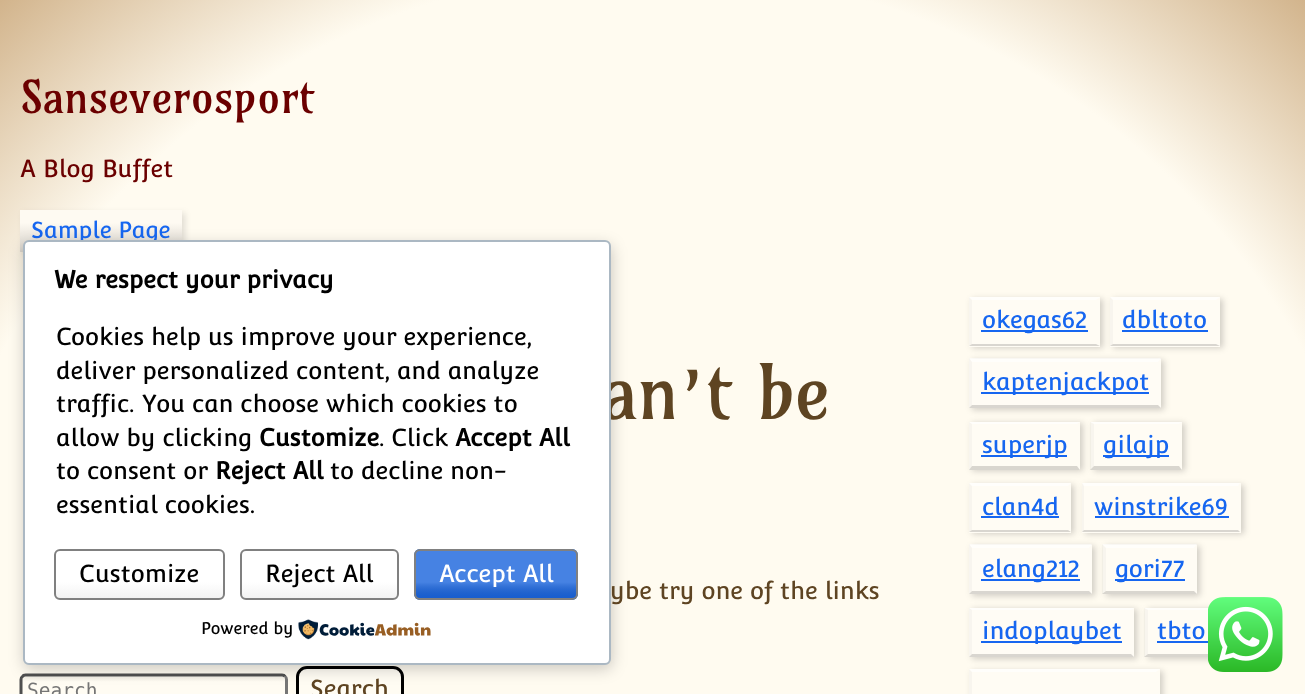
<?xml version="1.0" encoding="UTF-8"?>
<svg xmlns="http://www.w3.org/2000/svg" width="1305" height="694">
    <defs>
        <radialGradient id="g1" gradientUnits="userSpaceOnUse" cx="653" cy="714" r="967"><stop offset="0.77" stop-color="#FFFBF0"/><stop offset="1" stop-color="#D2B48C"/></radialGradient>
        <filter id="blur1" x="-50%" y="-200%" width="200%" height="500%"><feGaussianBlur stdDeviation="3"/></filter>
        <linearGradient id="g2" gradientUnits="userSpaceOnUse" x1="101" y1="210" x2="101" y2="252"><stop offset="0.3" stop-color="#FEFAF2"/><stop offset="1" stop-color="#D5D0C8"/></linearGradient>
        <clipPath id="clip1"><rect x="20" y="674" width="268" height="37" rx="6"/></clipPath>
        <linearGradient id="g3" gradientUnits="userSpaceOnUse" x1="154" y1="677" x2="154" y2="645"><stop offset="0.85" stop-color="#FFFCF3"/><stop offset="1" stop-color="#F2EEE4"/></linearGradient>
        <linearGradient id="g4" gradientUnits="userSpaceOnUse" x1="154" y1="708" x2="154" y2="677"><stop offset="0.85" stop-color="#FFFCF3"/><stop offset="1" stop-color="#F2EEE4"/></linearGradient>
        <clipPath id="clip2"><rect x="296" y="666" width="108" height="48" rx="11"/></clipPath>
        <linearGradient id="g5" gradientUnits="userSpaceOnUse" x1="350" y1="669" x2="350" y2="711"><stop offset="0.65" stop-color="#FFFCF3"/><stop offset="1" stop-color="#F2EEE4"/></linearGradient>
        <filter id="blur2" x="-50%" y="-200%" width="200%" height="500%"><feGaussianBlur stdDeviation="7.5"/></filter>
        <clipPath id="clip3"><rect x="54" y="549" width="171" height="51" rx="6"/></clipPath>
        <linearGradient id="g6" gradientUnits="userSpaceOnUse" x1="140" y1="551" x2="140" y2="599"><stop offset="0.65" stop-color="#FFFFFF"/><stop offset="1" stop-color="#F2F2F2"/></linearGradient>
        <clipPath id="clip4"><rect x="240" y="549" width="159" height="51" rx="6"/></clipPath>
        <linearGradient id="g7" gradientUnits="userSpaceOnUse" x1="320" y1="551" x2="320" y2="599"><stop offset="0.65" stop-color="#FFFFFF"/><stop offset="1" stop-color="#F2F2F2"/></linearGradient>
        <clipPath id="clip5"><rect x="414" y="549" width="164" height="51" rx="6"/></clipPath>
        <linearGradient id="g8" gradientUnits="userSpaceOnUse" x1="496" y1="551" x2="496" y2="599"><stop offset="0.65" stop-color="#FFFFFF" stop-opacity="0.2"/><stop offset="1" stop-color="#000000" stop-opacity="0.05"/></linearGradient>
        <clipPath id="clip6"><path d="M 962 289 H 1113 V 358 H 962 Z M 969 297 H 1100 V 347 H 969 Z" clip-rule="evenodd"/></clipPath>
        <clipPath id="clip7"><path d="M 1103 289 H 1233 V 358 H 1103 Z M 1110 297 H 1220 V 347 H 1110 Z" clip-rule="evenodd"/></clipPath>
        <clipPath id="clip8"><path d="M 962 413 H 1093 V 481 H 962 Z M 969 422 H 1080 V 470 H 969 Z" clip-rule="evenodd"/></clipPath>
        <clipPath id="clip9"><path d="M 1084 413 H 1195 V 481 H 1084 Z M 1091 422 H 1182 V 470 H 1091 Z" clip-rule="evenodd"/></clipPath>
        <clipPath id="clip10"><path d="M 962 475 H 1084 V 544 H 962 Z M 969 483 H 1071 V 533 H 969 Z" clip-rule="evenodd"/></clipPath>
        <clipPath id="clip11"><path d="M 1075 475 H 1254 V 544 H 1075 Z M 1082 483 H 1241 V 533 H 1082 Z" clip-rule="evenodd"/></clipPath>
        <clipPath id="clip12"><path d="M 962 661 H 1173 V 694 H 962 Z M 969 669 H 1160 V 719 H 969 Z" clip-rule="evenodd"/></clipPath>
    </defs>
    <rect width="100%" height="100%" fill="#FFFFFF"/>
    <rect x="0" y="0" width="1305" height="694" fill="url(#g1)"/>
    <text x="20" y="113" font-family="Amarante" font-size="44.5" fill="#6B0000">Sanseverosport</text>
    <text x="20" y="177" font-family="Convergence" font-size="24" fill="#6B0000">A Blog Buffet</text>
    <rect x="23" y="213" width="162" height="42" fill="#000000" fill-opacity="0.12" filter="url(#blur1)"/>
    <rect x="20" y="210" width="162" height="42" fill="url(#g2)"/>
    <text x="31" y="238" font-family="Convergence" font-size="22.75" fill="#1666F0">Sample Page</text>
    <g clip-path="url(#clip1)">
        <rect x="20" y="674" width="268" height="3" fill="url(#g3)"/>
        <rect x="20" y="677" width="268" height="17" fill="url(#g4)"/>
    </g>
    <path d="M 285 676.5 C 286 677 286.5 678.5 286.5 679.5 V 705 C 286.5 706 286 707.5 285 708 C 284.5 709 283 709.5 282 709.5 H 25.5 C 24.5 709.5 23 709 22.5 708" fill="none" stroke="#767676" stroke-width="3"/>
    <path d="M 22.5 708 C 21.5 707.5 21 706 21 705 V 679.5 C 21 678.5 21.5 677 22.5 676.5 C 23 675.5 24.5 675 25.5 675 H 282 C 283 675 284.5 675.5 285 676.5" fill="none" stroke="#4F4F4F" stroke-width="3"/>
    <g clip-path="url(#clip2)">
        <rect x="296" y="669" width="108" height="25" fill="url(#g5)"/>
    </g>
    <rect x="297.5" y="667.5" width="105" height="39" rx="9.5" fill="none" stroke="#000000" stroke-width="3"/>
    <rect x="24" y="245" width="588" height="424" rx="6" fill="#000000" fill-opacity="0.2" filter="url(#blur2)"/>
    <text x="601" y="419" font-family="Amarante" font-size="75" fill="#5E4422">an’t be</text>
    <rect x="24" y="241" width="586" height="423" rx="5" fill="#FFFFFF" stroke="#ABB8C3" stroke-width="2"/>
    <text x="54" y="288" font-family="Convergence" font-size="24" font-weight="700" fill="#000000">We respect your privacy</text>
    <text font-family="Convergence" font-size="24" fill="#000000">
        <tspan x="56" y="345">Cookies help us improve your experience,</tspan>
        <tspan x="56" y="379">deliver personalized content, and analyze</tspan>
        <tspan x="56" y="412">traffic. You can choose which cookies to</tspan>
        <tspan x="56" y="446">allow by clicking</tspan>
    </text>
    <text x="259" y="446" font-family="Convergence" font-size="24" font-weight="700" fill="#000000">Customize</text>
    <text x="379" y="446" font-family="Convergence" font-size="24" fill="#000000">. Click</text>
    <text x="455" y="446" font-family="Convergence" font-size="24" font-weight="700" fill="#000000">Accept All</text>
    <text x="56" y="479" font-family="Convergence" font-size="24" fill="#000000">to consent or</text>
    <text x="215" y="479" font-family="Convergence" font-size="24" font-weight="700" fill="#000000">Reject All</text>
    <text x="330" y="479" font-family="Convergence" font-size="24" fill="#000000">to decline non-</text>
    <text x="56" y="513" font-family="Convergence" font-size="24" fill="#000000">essential cookies.</text>
    <g clip-path="url(#clip3)">
        <rect x="54" y="551" width="171" height="48" fill="url(#g6)"/>
    </g>
    <rect x="55" y="550" width="169" height="49" rx="5" fill="none" stroke="#808080" stroke-width="2"/>
    <text x="79" y="582" font-family="Convergence" font-size="24" fill="#000000">Customize</text>
    <g clip-path="url(#clip4)">
        <rect x="240" y="551" width="159" height="48" fill="url(#g7)"/>
    </g>
    <rect x="241" y="550" width="157" height="49" rx="5" fill="none" stroke="#808080" stroke-width="2"/>
    <text x="265" y="582" font-family="Convergence" font-size="24" fill="#000000">Reject All</text>
    <rect x="414" y="549" width="164" height="51" rx="6" fill="#1863DC"/>
    <g clip-path="url(#clip5)">
        <rect x="414" y="551" width="164" height="48" fill="url(#g8)"/>
    </g>
    <rect x="415" y="550" width="162" height="49" rx="5" fill="none" stroke="#808080" stroke-width="2"/>
    <text x="439" y="582" font-family="Convergence" font-size="24" fill="#FFFFFF">Accept All</text>
    <text x="201" y="634" font-family="Convergence" font-size="16.5" fill="#000000">Powered by</text>
    <image x="298" y="619" width="133" height="21" href="img_01.png"/>
    <text x="610" y="599" font-family="Convergence" font-size="24" fill="#5E4422">ybe try one of the links</text>
    <text x="27" y="697" font-family="DejaVu Sans Mono" font-size="19.5" fill="#757575">Search</text>
    <text x="310" y="697" font-family="Convergence" font-size="24" fill="#5E4422">Search</text>
    <g clip-path="url(#clip6)">
        <rect x="972" y="299" width="131" height="49" fill="#000000" fill-opacity="0.18" filter="url(#blur1)"/>
    </g>
    <rect x="969" y="297" width="131" height="50" fill="#FFFFFF" fill-opacity="0.3"/>
    <path d="M 969 297 H 1100 L 1096 300 H 972 Z" fill="#FFFEFB"/>
    <path d="M 1100 346 H 969 L 972 344 H 1096 Z" fill="#D9D6D0"/>
    <path d="M 969 346 V 297 L 972 300 V 344 Z" fill="#C8C8C8" fill-opacity="0.13"/>
    <rect x="981" y="330" width="107" height="2" fill="#1666F0"/>
    <text x="982" y="328" font-family="Convergence" font-size="24" fill="#1666F0">okegas62</text>
    <g clip-path="url(#clip7)">
        <rect x="1113" y="299" width="110" height="49" fill="#000000" fill-opacity="0.18" filter="url(#blur1)"/>
    </g>
    <rect x="1110" y="297" width="110" height="50" fill="#FFFFFF" fill-opacity="0.3"/>
    <path d="M 1110 297 H 1220 L 1216 300 H 1113 Z" fill="#FFFEFB"/>
    <path d="M 1220 346 H 1110 L 1113 344 H 1216 Z" fill="#D9D6D0"/>
    <path d="M 1110 346 V 297 L 1113 300 V 344 Z" fill="#C8C8C8" fill-opacity="0.13"/>
    <text x="1122" y="328" font-family="Convergence" font-size="24" fill="#1666F0">dbltoto</text>
    <rect x="1122" y="330" width="86" height="2" fill="#1666F0"/>
    <rect x="972" y="360" width="192" height="50" fill="#000000" fill-opacity="0.18" filter="url(#blur1)"/>
    <rect x="969" y="359" width="192" height="49" fill="#FFFCF5"/>
    <path d="M 969 358 H 1161 L 1158 362 H 972 Z" fill="#FFFFFF" fill-opacity="0.6"/>
    <path d="M 1161 408 H 969 L 972 405 H 1158 Z" fill="#D9D6D0"/>
    <path d="M 969 408 V 358 L 972 362 V 405 Z" fill="#C8C8C8" fill-opacity="0.13"/>
    <rect x="981" y="392" width="168" height="2" fill="#1666F0"/>
    <text x="982" y="390" font-family="Convergence" font-size="24" fill="#1666F0">kaptenjackpot</text>
    <g clip-path="url(#clip8)">
        <rect x="972" y="423" width="111" height="48" fill="#000000" fill-opacity="0.18" filter="url(#blur1)"/>
    </g>
    <rect x="969" y="422" width="111" height="48" fill="#FFFFFF" fill-opacity="0.3"/>
    <path d="M 969 422 H 1080 L 1077 424 H 972 Z" fill="#FFFEFB"/>
    <path d="M 1080 470 H 969 L 972 466 H 1077 Z" fill="#000000" fill-opacity="0.15"/>
    <path d="M 969 470 V 422 L 972 424 V 466 Z" fill="#C8C8C8" fill-opacity="0.13"/>
    <rect x="981" y="455" width="86" height="2" fill="#1666F0"/>
    <text x="982" y="453" font-family="Convergence" font-size="24" fill="#1666F0">superjp</text>
    <g clip-path="url(#clip9)">
        <rect x="1094" y="423" width="91" height="48" fill="#000000" fill-opacity="0.18" filter="url(#blur1)"/>
    </g>
    <rect x="1091" y="422" width="91" height="48" fill="#FFFFFF" fill-opacity="0.3"/>
    <path d="M 1090 422 H 1182 L 1179 424 H 1094 Z" fill="#FFFEFB"/>
    <path d="M 1182 470 H 1090 L 1094 466 H 1179 Z" fill="#000000" fill-opacity="0.15"/>
    <path d="M 1090 470 V 422 L 1094 424 V 466 Z" fill="#C8C8C8" fill-opacity="0.13"/>
    <rect x="1103" y="455" width="66" height="2" fill="#1666F0"/>
    <text x="1103" y="453" font-family="Convergence" font-size="24" fill="#1666F0">gilajp</text>
    <g clip-path="url(#clip10)">
        <rect x="972" y="485" width="102" height="49" fill="#000000" fill-opacity="0.18" filter="url(#blur1)"/>
    </g>
    <rect x="969" y="483" width="102" height="50" fill="#FFFFFF" fill-opacity="0.3"/>
    <path d="M 969 483 H 1071 L 1068 486 H 972 Z" fill="#FFFEFB"/>
    <path d="M 1071 532 H 969 L 972 530 H 1068 Z" fill="#D9D6D0"/>
    <path d="M 969 532 V 483 L 972 486 V 530 Z" fill="#C8C8C8" fill-opacity="0.13"/>
    <text x="982" y="515" font-family="Convergence" font-size="24" fill="#1666F0">clan4d</text>
    <rect x="981" y="516" width="78" height="2" fill="#1666F0"/>
    <g clip-path="url(#clip11)">
        <rect x="1085" y="485" width="159" height="49" fill="#000000" fill-opacity="0.18" filter="url(#blur1)"/>
    </g>
    <rect x="1082" y="483" width="159" height="50" fill="#FFFFFF" fill-opacity="0.3"/>
    <path d="M 1082 483 H 1240 L 1238 486 H 1084 Z" fill="#FFFEFB"/>
    <path d="M 1240 532 H 1082 L 1084 530 H 1238 Z" fill="#D9D6D0"/>
    <path d="M 1082 532 V 483 L 1084 486 V 530 Z" fill="#C8C8C8" fill-opacity="0.13"/>
    <text x="1094" y="515" font-family="Convergence" font-size="24" fill="#1666F0">winstrike69</text>
    <rect x="1095" y="516" width="134" height="2" fill="#1666F0"/>
    <rect x="972" y="546" width="123" height="50" fill="#000000" fill-opacity="0.18" filter="url(#blur1)"/>
    <rect x="969" y="545" width="123" height="49" fill="#FFFCF5"/>
    <path d="M 969 544 H 1092 L 1089 548 H 972 Z" fill="#FFFFFF" fill-opacity="0.6"/>
    <path d="M 1092 594 H 969 L 972 591 H 1089 Z" fill="#D9D6D0"/>
    <path d="M 969 594 V 544 L 972 548 V 591 Z" fill="#C8C8C8" fill-opacity="0.13"/>
    <rect x="981" y="579" width="99" height="2" fill="#1666F0"/>
    <text x="982" y="577" font-family="Convergence" font-size="24" fill="#1666F0">elang212</text>
    <rect x="1106" y="546" width="94" height="50" fill="#000000" fill-opacity="0.18" filter="url(#blur1)"/>
    <rect x="1103" y="545" width="94" height="49" fill="#FFFCF4"/>
    <path d="M 1102 544 H 1197 L 1194 548 H 1106 Z" fill="#FFFFFF" fill-opacity="0.6"/>
    <path d="M 1197 594 H 1102 L 1106 591 H 1194 Z" fill="#D9D6CF"/>
    <path d="M 1102 594 V 544 L 1106 548 V 591 Z" fill="#C8C8C8" fill-opacity="0.13"/>
    <rect x="1115" y="579" width="70" height="2" fill="#1666F0"/>
    <text x="1115" y="577" font-family="Convergence" font-size="24" fill="#1666F0">gori77</text>
    <rect x="972" y="609" width="165" height="50" fill="#000000" fill-opacity="0.18" filter="url(#blur1)"/>
    <rect x="969" y="608" width="165" height="49" fill="#FFFCF5"/>
    <path d="M 969 608 H 1134 L 1131 610 H 972 Z" fill="#FFFEFB"/>
    <path d="M 1134 657 H 969 L 972 654 H 1131 Z" fill="#D9D6D0"/>
    <path d="M 969 657 V 608 L 972 610 V 654 Z" fill="#C8C8C8" fill-opacity="0.13"/>
    <rect x="981" y="641" width="141" height="2" fill="#1666F0"/>
    <text x="982" y="639" font-family="Convergence" font-size="24" fill="#1666F0">indoplaybet</text>
    <rect x="1148" y="609" width="97" height="50" fill="#000000" fill-opacity="0.18" filter="url(#blur1)"/>
    <rect x="1145" y="608" width="63" height="49" fill="#FFFCF4"/>
    <path d="M 1144 608 H 1242 L 1239 610 H 1148 Z" fill="#FFFEFB"/>
    <path d="M 1242 657 H 1144 L 1148 654 H 1239 Z" fill="#D9D6CF"/>
    <path d="M 1144 657 V 608 L 1148 610 V 654 Z" fill="#C8C8C8" fill-opacity="0.13"/>
    <text x="1157" y="639" font-family="Convergence" font-size="24" fill="#1666F0">tbto</text>
    <rect x="1157" y="641" width="51" height="2" fill="#1666F0"/>
    <g clip-path="url(#clip12)">
        <rect x="972" y="671" width="191" height="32" fill="#000000" fill-opacity="0.18" filter="url(#blur1)"/>
    </g>
    <rect x="969" y="669" width="191" height="25" fill="#FFFFFF" fill-opacity="0.3"/>
    <path d="M 969 669 H 1160 L 1156 672 H 972 Z" fill="#FFFEFB"/>
    <path d="M 969 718 V 669 L 972 672 V 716 Z" fill="#C8C8C8" fill-opacity="0.13"/>
    <image x="1208" y="597" width="75" height="75" href="img_02.png"/>
</svg>
